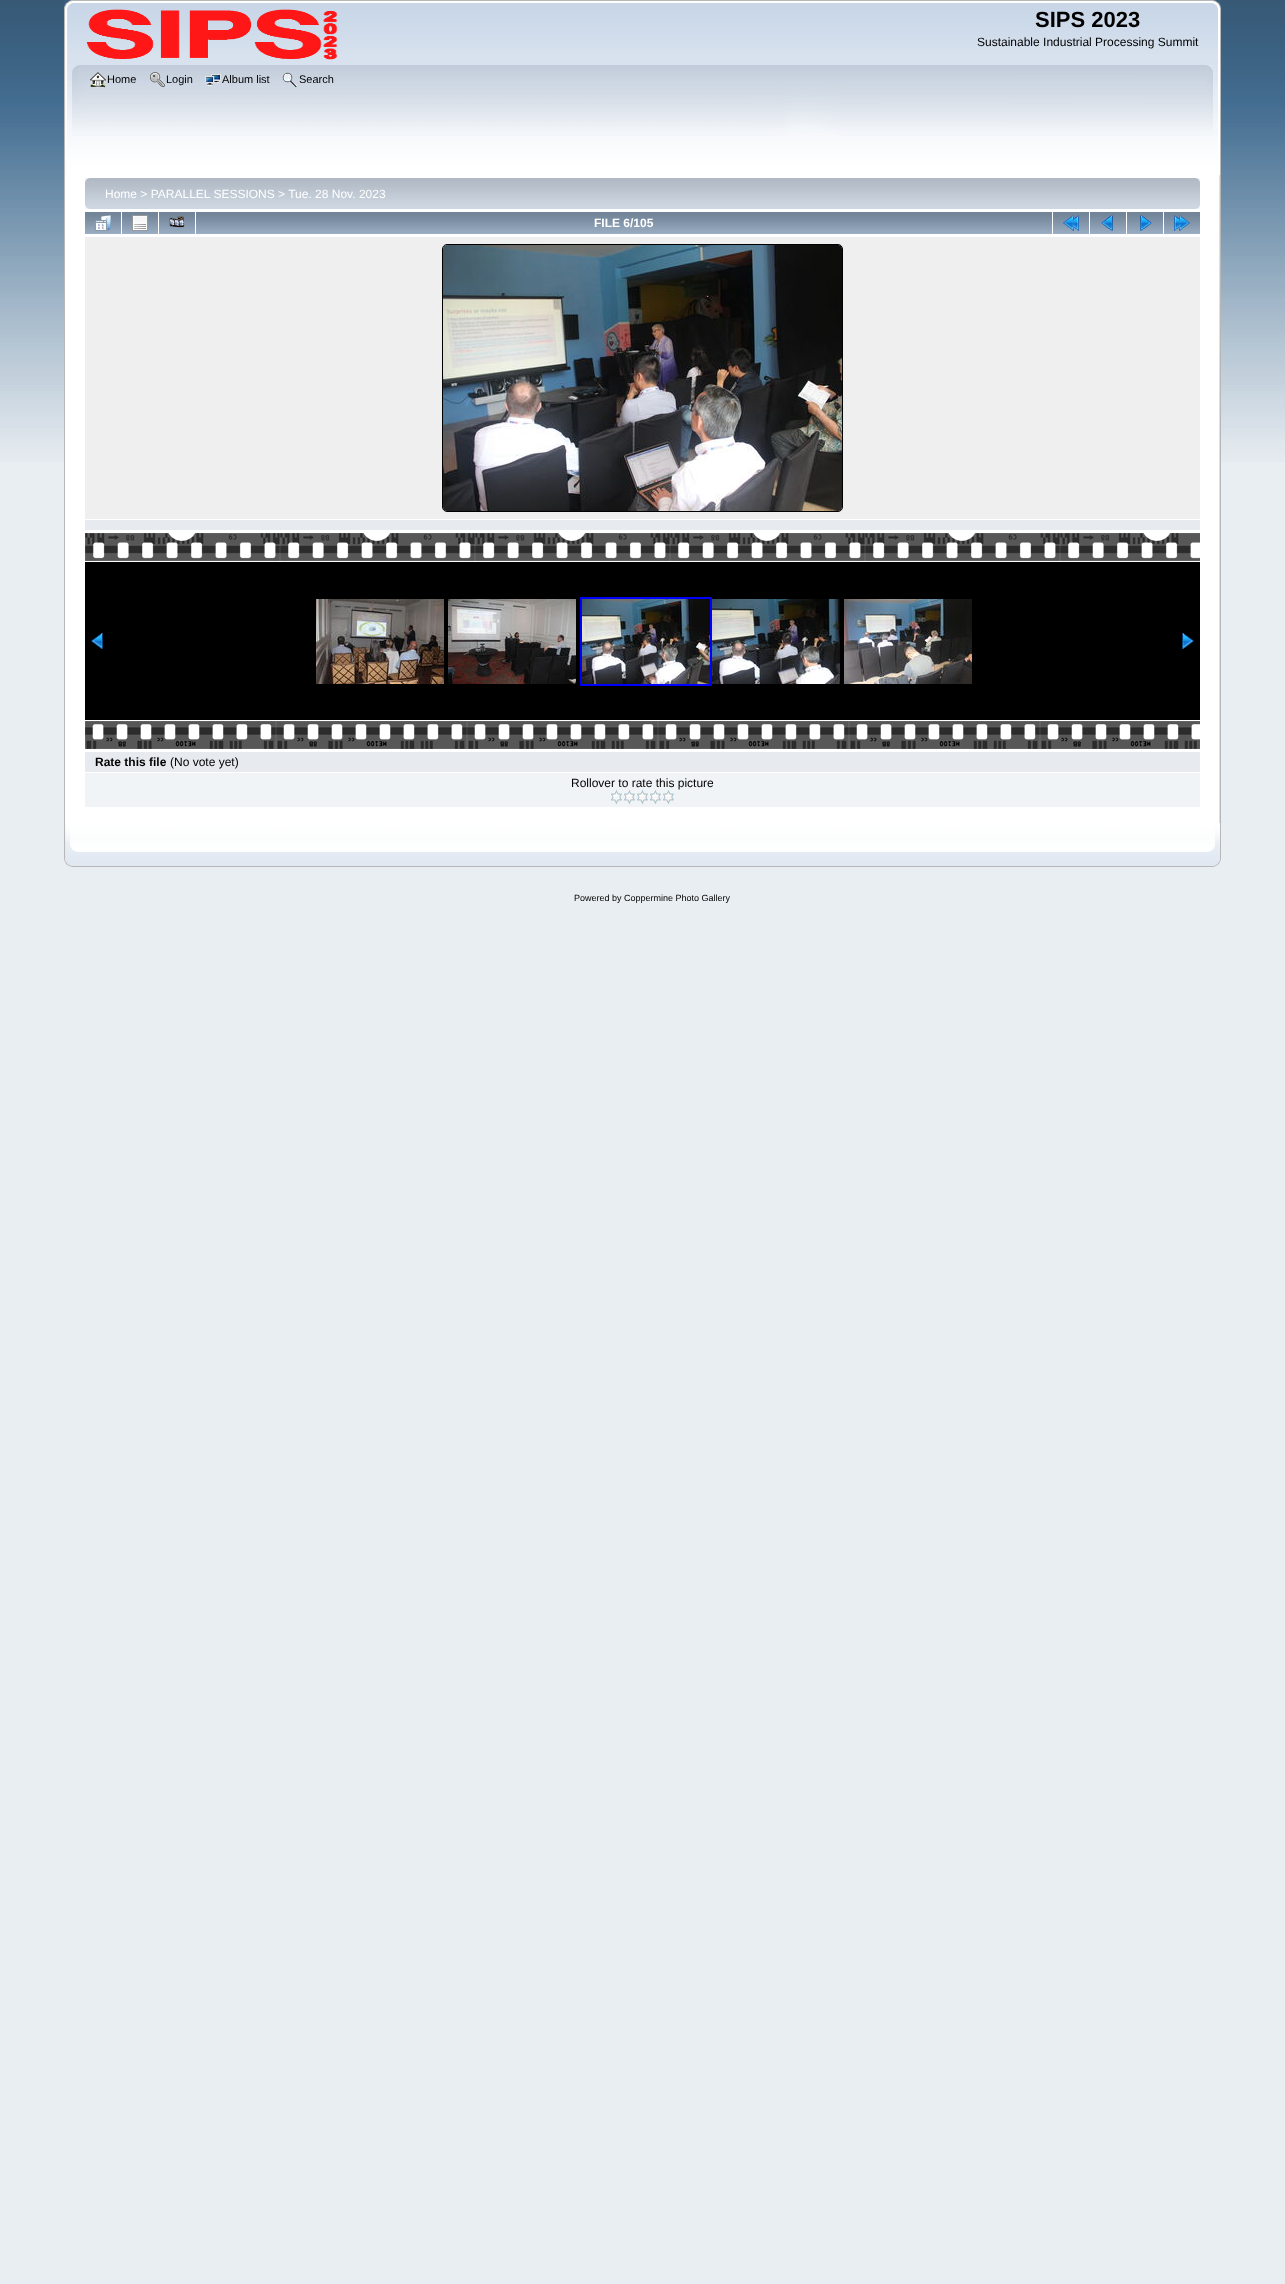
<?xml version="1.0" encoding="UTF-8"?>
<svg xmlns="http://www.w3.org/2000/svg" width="1285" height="2284">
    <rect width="100%" height="100%" fill="#E9EEF2"/>
    <image x="0" y="0" width="1285" height="462" href="img_01.png"/>
    <image x="64" y="0" width="1149" height="65" href="img_02.png"/>
    <image x="1213" y="0" width="8" height="65" href="img_03.png"/>
    <image x="87" y="9" width="251" height="51" href="img_04.png"/>
    <text x="1035" y="27" font-family="Liberation Sans" font-size="22" font-weight="700" fill="#000000">SIPS 2023</text>
    <text x="977" y="46" font-family="Liberation Sans" font-size="12" fill="#000000">Sustainable Industrial Processing Summit</text>
    <image x="64" y="65" width="1142" height="110" href="img_05.png"/>
    <image x="1206" y="65" width="15" height="110" href="img_06.png"/>
    <image x="90" y="72" width="16" height="16" href="img_07.png"/>
    <text x="107" y="83" font-family="Liberation Sans" font-size="11" fill="#000000">Home</text>
    <image x="150" y="72" width="15" height="15" href="img_08.png"/>
    <text x="166" y="83" font-family="Liberation Sans" font-size="11" fill="#000000">Login</text>
    <image x="205" y="74" width="16" height="12" href="img_09.png"/>
    <text x="222" y="83" font-family="Liberation Sans" font-size="11" fill="#000000">Album list</text>
    <image x="282" y="72" width="16" height="15" href="img_10.png"/>
    <text x="299" y="83" font-family="Liberation Sans" font-size="11" fill="#000000">Search</text>
    <rect x="65" y="175" width="1154" height="648" fill="#FFFFFF"/>
    <rect x="64" y="175" width="1" height="648" fill="#B7B7B7"/>
    <image x="1219" y="175" width="2" height="648" href="img_11.png"/>
    <image x="85" y="178" width="1110" height="31" href="img_12.png"/>
    <image x="1195" y="178" width="5" height="31" href="img_13.png"/>
    <text x="105" y="198" font-family="Liberation Sans" font-size="12" fill="#FFFFFF">Home &gt; PARALLEL SESSIONS &gt; Tue. 28 Nov. 2023</text>
    <image x="85" y="212" width="36" height="22" href="img_14.png"/>
    <image x="95" y="215" width="16" height="16" href="img_15.png"/>
    <image x="122" y="212" width="36" height="22" href="img_14.png"/>
    <image x="132" y="215" width="16" height="16" href="img_16.png"/>
    <image x="159" y="212" width="36" height="22" href="img_14.png"/>
    <image x="169" y="216" width="16" height="12" href="img_17.png"/>
    <image x="196" y="212" width="856" height="22" href="img_18.png"/>
    <text x="594" y="227" font-family="Liberation Sans" font-size="12" font-weight="700" fill="#FFFFFF">FILE 6/105</text>
    <image x="1053" y="212" width="36" height="22" href="img_14.png"/>
    <image x="1063" y="215" width="16" height="16" href="img_19.png"/>
    <image x="1090" y="212" width="36" height="22" href="img_14.png"/>
    <image x="1101" y="215" width="12" height="16" href="img_20.png"/>
    <image x="1127" y="212" width="36" height="22" href="img_14.png"/>
    <image x="1140" y="215" width="12" height="16" href="img_21.png"/>
    <image x="1164" y="212" width="36" height="22" href="img_14.png"/>
    <image x="1174" y="215" width="16" height="16" href="img_22.png"/>
    <rect x="85" y="237" width="1115" height="282" fill="#EFEFEF"/>
    <rect x="442.5" y="244.5" width="400" height="267" rx="4.5" fill="none" stroke="#000000"/>
    <image x="443" y="245" width="399" height="266" href="img_23.png"/>
    <rect x="85" y="520" width="1115" height="10" fill="#E7EAEF"/>
    <image x="85" y="533" width="1115" height="28" href="img_24.png"/>
    <rect x="85" y="562" width="1115" height="158" fill="#000000"/>
    <image x="91" y="633" width="12" height="16" href="img_25.png"/>
    <image x="316" y="599" width="128" height="85" href="img_26.png"/>
    <image x="448" y="599" width="128" height="85" href="img_27.png"/>
    <rect x="581" y="598" width="130" height="87" fill="none" stroke="#0000FF" stroke-width="2"/>
    <image x="582" y="599" width="128" height="85" href="img_28.png"/>
    <image x="712" y="599" width="128" height="85" href="img_29.png"/>
    <image x="844" y="599" width="128" height="85" href="img_30.png"/>
    <image x="1182" y="633" width="12" height="16" href="img_31.png"/>
    <image x="85" y="721" width="1115" height="28" href="img_32.png"/>
    <rect x="85" y="752" width="1115" height="20" fill="#E7EAEF"/>
    <text x="95" y="766" font-family="Liberation Sans" font-size="12" font-weight="700" fill="#000000">Rate this file</text>
    <text x="170" y="766" font-family="Liberation Sans" font-size="12" fill="#000000">(No vote yet)</text>
    <rect x="85" y="773" width="1115" height="34" fill="#F0F4F7"/>
    <text x="571" y="787" font-family="Liberation Sans" font-size="12" fill="#000000">Rollover to rate this picture</text>
    <image x="610" y="790" width="13" height="14" href="img_33.png"/>
    <image x="623" y="790" width="13" height="14" href="img_33.png"/>
    <image x="636" y="790" width="13" height="14" href="img_33.png"/>
    <image x="649" y="790" width="13" height="14" href="img_33.png"/>
    <image x="662" y="790" width="13" height="14" href="img_33.png"/>
    <image x="64" y="823" width="1144" height="44" href="img_34.png"/>
    <image x="1208" y="823" width="13" height="44" href="img_35.png"/>
    <text x="574" y="901" font-family="Liberation Sans" font-size="9" fill="#000000">Powered by Coppermine Photo Gallery</text>
</svg>
